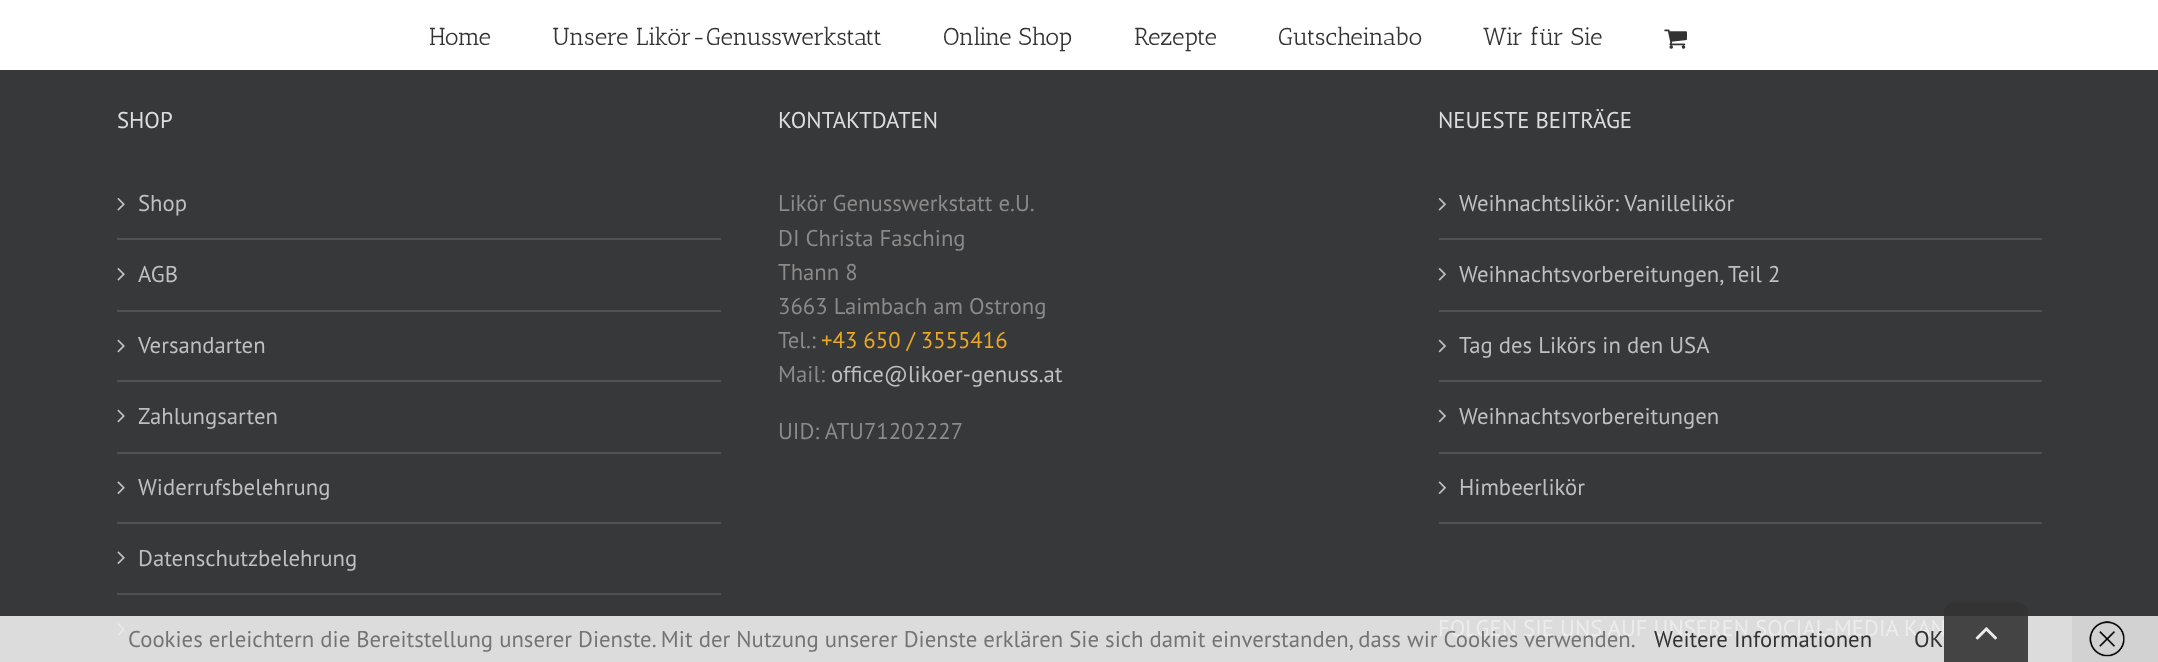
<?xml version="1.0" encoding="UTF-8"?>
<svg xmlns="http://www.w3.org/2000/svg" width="2158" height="662">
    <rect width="100%" height="100%" fill="#363839"/>
    <rect x="0" y="0" width="2158" height="70" fill="#FFFFFF"/>
    <text x="429" y="45" font-family="Antic Slab" font-size="24.5" fill="#333333">Home</text>
    <text x="552" y="45" font-family="Antic Slab" font-size="24.5" fill="#333333">Unsere Likör-Genusswerkstatt</text>
    <text x="943" y="45" font-family="Antic Slab" font-size="24.5" fill="#333333">Online Shop</text>
    <text x="1134" y="45" font-family="Antic Slab" font-size="24.5" fill="#333333">Rezepte</text>
    <text x="1278" y="45" font-family="Antic Slab" font-size="24.5" fill="#333333">Gutscheinabo</text>
    <text x="1483" y="45" font-family="Antic Slab" font-size="24.5" fill="#333333">Wir für Sie</text>
    <image x="1664" y="29" width="23" height="20" href="img_01.png"/>
    <rect x="0" y="616" width="2072" height="46" fill="#DCDCDC"/>
    <text x="117" y="128" font-family="PT Sans" font-size="22.75" fill="#DDDDDD">SHOP</text>
    <rect x="117" y="238" width="604" height="2" fill="#505152"/>
    <image x="117" y="198" width="8" height="13" href="img_02.png"/>
    <text x="138" y="211" font-family="PT Sans" font-size="22.75" fill="#BFBFBF">Shop</text>
    <rect x="117" y="310" width="604" height="2" fill="#505152"/>
    <image x="117" y="268" width="8" height="13" href="img_02.png"/>
    <text x="138" y="282" font-family="PT Sans" font-size="22.75" fill="#BFBFBF">AGB</text>
    <rect x="117" y="380" width="604" height="2" fill="#505152"/>
    <image x="117" y="339" width="8" height="14" href="img_03.png"/>
    <text x="138" y="353" font-family="PT Sans" font-size="22.75" fill="#BFBFBF">Versandarten</text>
    <rect x="117" y="452" width="604" height="2" fill="#505152"/>
    <image x="117" y="409" width="8" height="14" href="img_03.png"/>
    <text x="138" y="424" font-family="PT Sans" font-size="22.75" fill="#BFBFBF">Zahlungsarten</text>
    <rect x="117" y="522" width="604" height="2" fill="#505152"/>
    <image x="117" y="481" width="8" height="13" href="img_04.png"/>
    <text x="138" y="495" font-family="PT Sans" font-size="22.75" fill="#BFBFBF">Widerrufsbelehrung</text>
    <rect x="117" y="593" width="604" height="2" fill="#505152"/>
    <image x="117" y="551" width="8" height="13" href="img_04.png"/>
    <text x="138" y="566" font-family="PT Sans" font-size="22.75" fill="#BFBFBF">Datenschutzbelehrung</text>
    <image x="117" y="623" width="8" height="13" href="img_05.png"/>
    <text x="778" y="128" font-family="PT Sans" font-size="22.75" fill="#DDDDDD">KONTAKTDATEN</text>
    <text font-family="PT Sans" font-size="22.75" fill="#8C8989">
        <tspan x="778" y="211">Likör Genusswerkstatt e.U.</tspan>
        <tspan x="778" y="246">DI Christa Fasching</tspan>
        <tspan x="778" y="280">Thann 8</tspan>
        <tspan x="778" y="314">3663 Laimbach am Ostrong</tspan>
        <tspan x="778" y="348">Tel.:</tspan>
    </text>
    <text x="821" y="348" font-family="PT Sans" font-size="22.75" fill="#E9A825">+43 650 / 3555416</text>
    <text x="778" y="382" font-family="PT Sans" font-size="22.75" fill="#8C8989">Mail:</text>
    <text x="831" y="382" font-family="PT Sans" font-size="22.75" fill="#BFBFBF">office@likoer-genuss.at</text>
    <text x="778" y="439" font-family="PT Sans" font-size="22.75" fill="#8C8989">UID: ATU71202227</text>
    <text x="1438" y="128" font-family="PT Sans" font-size="22.75" fill="#DDDDDD">NEUESTE BEITRÄGE</text>
    <rect x="1439" y="238" width="603" height="2" fill="#505152"/>
    <image x="1438" y="198" width="8" height="13" href="img_06.png"/>
    <text x="1459" y="211" font-family="PT Sans" font-size="22.75" fill="#BFBFBF">Weihnachtslikör: Vanillelikör</text>
    <rect x="1439" y="310" width="603" height="2" fill="#505152"/>
    <image x="1438" y="268" width="8" height="13" href="img_06.png"/>
    <text x="1459" y="282" font-family="PT Sans" font-size="22.75" fill="#BFBFBF">Weihnachtsvorbereitungen, Teil 2</text>
    <rect x="1439" y="380" width="603" height="2" fill="#505152"/>
    <image x="1438" y="339" width="8" height="14" href="img_07.png"/>
    <text x="1459" y="353" font-family="PT Sans" font-size="22.75" fill="#BFBFBF">Tag des Likörs in den USA</text>
    <rect x="1439" y="452" width="603" height="2" fill="#505152"/>
    <image x="1438" y="409" width="8" height="14" href="img_07.png"/>
    <text x="1459" y="424" font-family="PT Sans" font-size="22.75" fill="#BFBFBF">Weihnachtsvorbereitungen</text>
    <rect x="1439" y="522" width="603" height="2" fill="#505152"/>
    <image x="1438" y="481" width="8" height="13" href="img_08.png"/>
    <text x="1459" y="495" font-family="PT Sans" font-size="22.75" fill="#BFBFBF">Himbeerlikör</text>
    <text x="1438" y="636" font-family="PT Sans" font-size="22.75" fill="#ECECEC">FOLGEN SIE UNS AUF UNSEREN SOCIAL-MEDIA KAN</text>
    <path d="M 1955 602 H 2017 C 2023 602 2028 607 2028 613 V 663 H 1944 V 613 C 1944 607 1949 602 1955 602 Z" fill="#333333" fill-opacity="0.9"/>
    <image x="1975" y="627" width="22" height="13" href="img_09.png"/>
    <text x="128" y="647" font-family="PT Sans" font-size="22.75" fill="#747474">Cookies erleichtern die Bereitstellung unserer Dienste. Mit der Nutzung unserer Dienste erklären Sie sich damit einverstanden, dass wir Cookies verwenden.</text>
    <text x="1654" y="647" font-family="PT Sans" font-size="22.75" fill="#333333">Weitere Informationen</text>
    <text x="1914" y="647" font-family="PT Sans" font-size="22.75" fill="#333333">OK</text>
    <rect x="2072" y="616" width="86" height="46" fill="#D2D2D2"/>
    <image x="2089" y="621" width="36" height="36" href="img_10.png"/>
</svg>
